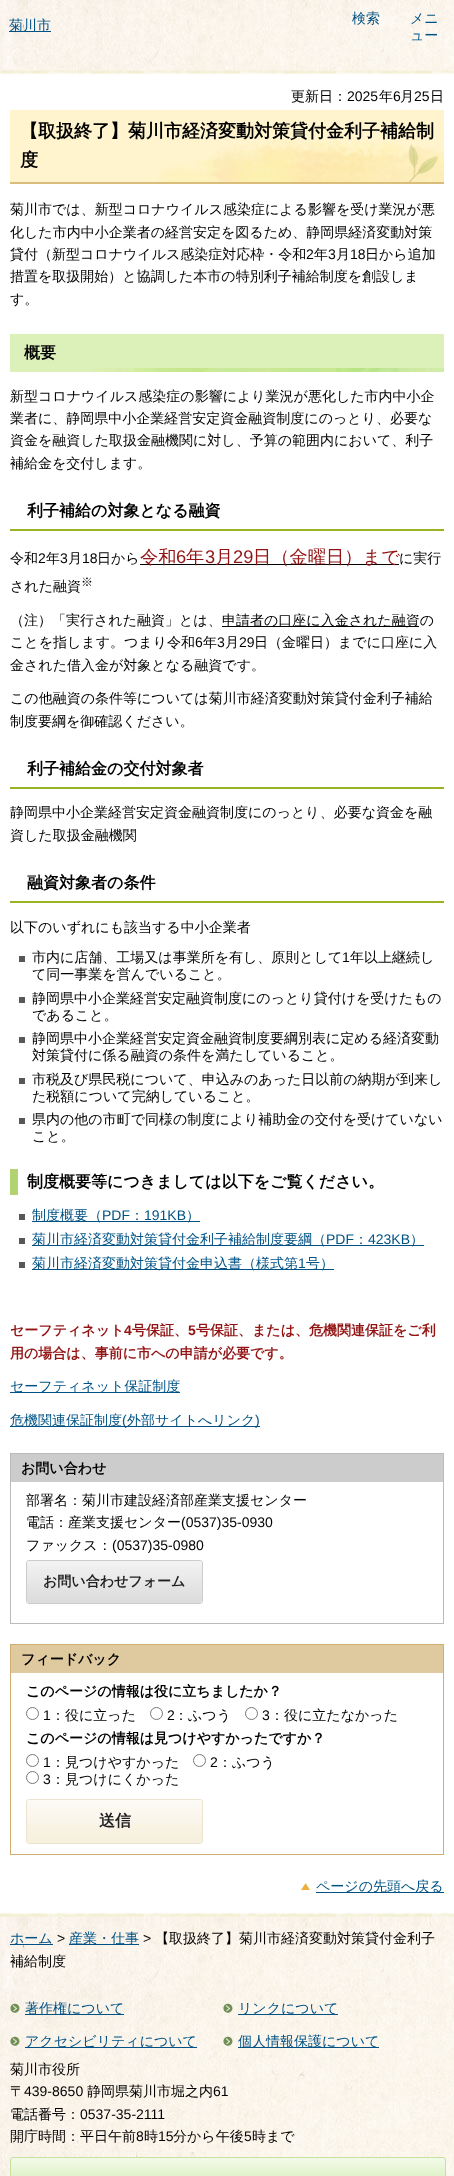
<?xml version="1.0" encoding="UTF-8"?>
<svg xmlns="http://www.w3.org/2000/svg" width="454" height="2176">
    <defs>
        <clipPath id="clip1"><rect x="10" y="2157" width="436" height="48" rx="3"/></clipPath>
        <linearGradient id="g1" gradientUnits="userSpaceOnUse" x1="228" y1="2158" x2="228" y2="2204"><stop offset="0" stop-color="#F2FAE9"/><stop offset="1" stop-color="#C5E898"/></linearGradient>
    </defs>
    <rect width="100%" height="100%" fill="#FFFFFF"/>
    <image x="0" y="0" width="454" height="2176" href="img_01.png"/>
    <rect x="9" y="31" width="42" height="1" fill="#005285"/>
    <text x="9" y="30" font-family="WenQuanYi Zen Hei" font-size="14" font-weight="500" fill="#005285">菊川市</text>
    <text x="352" y="23" font-family="WenQuanYi Zen Hei" font-size="14" font-weight="500" fill="#005285">検索</text>
    <text font-family="WenQuanYi Zen Hei" font-size="14" font-weight="500" fill="#005285">
        <tspan x="410" y="23">メニ</tspan>
        <tspan x="410" y="40">ュー</tspan>
    </text>
    <rect x="0" y="75" width="454" height="1837" fill="#FFFFFF"/>
    <image x="0" y="70" width="454" height="5" href="img_02.png"/>
    <image x="0" y="1912" width="454" height="5" href="img_03.png"/>
    <text x="291" y="101" font-family="WenQuanYi Zen Hei" font-size="14" font-weight="500" fill="#000000">更新日：</text>
    <text x="347" y="101" font-family="Liberation Sans" font-size="14" fill="#000000">2025</text>
    <text x="379" y="101" font-family="WenQuanYi Zen Hei" font-size="14" font-weight="500" fill="#000000">年</text>
    <text x="393" y="101" font-family="Liberation Sans" font-size="14" fill="#000000">6</text>
    <text x="400" y="101" font-family="WenQuanYi Zen Hei" font-size="14" font-weight="500" fill="#000000">月</text>
    <text x="414" y="101" font-family="Liberation Sans" font-size="14" fill="#000000">25</text>
    <text x="430" y="101" font-family="WenQuanYi Zen Hei" font-size="14" font-weight="500" fill="#000000">日</text>
    <rect x="10" y="110" width="434" height="29" fill="#FFF4CD"/>
    <image x="10" y="139" width="434" height="45" href="img_04.png"/>
    <text font-family="WenQuanYi Zen Hei" font-size="18" font-weight="700" fill="#000000">
        <tspan x="20" y="137">【取扱終了】菊川市経済変動対策貸付金利子補給制</tspan>
        <tspan x="20" y="166">度</tspan>
    </text>
    <text font-family="WenQuanYi Zen Hei" font-size="14" font-weight="500" fill="#000000">
        <tspan x="10" y="214">菊川市では、新型コロナウイルス感染症による影響を受け業況が悪</tspan>
        <tspan x="10" y="237">化した市内中小企業者の経営安定を図るため、静岡県経済変動対策</tspan>
        <tspan x="10" y="259">貸付（新型コロナウイルス感染症対応枠・令和</tspan>
    </text>
    <text x="306" y="259" font-family="Liberation Sans" font-size="14" fill="#000000">2</text>
    <text x="314" y="259" font-family="WenQuanYi Zen Hei" font-size="14" font-weight="500" fill="#000000">年</text>
    <text x="328" y="259" font-family="Liberation Sans" font-size="14" fill="#000000">3</text>
    <text x="336" y="259" font-family="WenQuanYi Zen Hei" font-size="14" font-weight="500" fill="#000000">月</text>
    <text x="350" y="259" font-family="Liberation Sans" font-size="14" fill="#000000">18</text>
    <text x="365" y="259" font-family="WenQuanYi Zen Hei" font-size="14" font-weight="500" fill="#000000">日から追加</text>
    <text font-family="WenQuanYi Zen Hei" font-size="14" font-weight="500" fill="#000000">
        <tspan x="10" y="281">措置を取扱開始）と協調した本市の特別利子補給制度を創設しま</tspan>
        <tspan x="10" y="304">す。</tspan>
    </text>
    <rect x="10" y="334" width="434" height="38" fill="#DCF0B9"/>
    <image x="94" y="368" width="350" height="4" href="img_05.png"/>
    <text x="24" y="358" font-family="WenQuanYi Zen Hei" font-size="16" font-weight="700" fill="#000000">概要</text>
    <text font-family="WenQuanYi Zen Hei" font-size="14" font-weight="500" fill="#000000">
        <tspan x="10" y="401">新型コロナウイルス感染症の影響により業況が悪化した市内中小企</tspan>
        <tspan x="10" y="423">業者に、静岡県中小企業経営安定資金融資制度にのっとり、必要な</tspan>
        <tspan x="10" y="445">資金を融資した取扱金融機関に対し、予算の範囲内において、利子</tspan>
        <tspan x="10" y="468">補給金を交付します。</tspan>
    </text>
    <rect x="10" y="529" width="434" height="2" fill="#98B422"/>
    <text x="27" y="516" font-family="WenQuanYi Zen Hei" font-size="16" font-weight="700" fill="#000000">利子補給の対象となる融資</text>
    <text x="10" y="563" font-family="WenQuanYi Zen Hei" font-size="14" font-weight="500" fill="#000000">令和</text>
    <text x="38" y="563" font-family="Liberation Sans" font-size="14" fill="#000000">2</text>
    <text x="46" y="563" font-family="WenQuanYi Zen Hei" font-size="14" font-weight="500" fill="#000000">年</text>
    <text x="60" y="563" font-family="Liberation Sans" font-size="14" fill="#000000">3</text>
    <text x="68" y="563" font-family="WenQuanYi Zen Hei" font-size="14" font-weight="500" fill="#000000">月</text>
    <text x="82" y="563" font-family="Liberation Sans" font-size="14" fill="#000000">18</text>
    <text x="97" y="563" font-family="WenQuanYi Zen Hei" font-size="14" font-weight="500" fill="#000000">日から</text>
    <rect x="140" y="564" width="259" height="1" fill="#000000"/>
    <text x="140" y="563" font-family="WenQuanYi Zen Hei" font-size="18.25" font-weight="500" fill="#921313">令和</text>
    <text x="176" y="563" font-family="Liberation Sans" font-size="18.25" fill="#921313">6</text>
    <text x="186" y="563" font-family="WenQuanYi Zen Hei" font-size="18.25" font-weight="500" fill="#921313">年</text>
    <text x="205" y="563" font-family="Liberation Sans" font-size="18.25" fill="#921313">3</text>
    <text x="215" y="563" font-family="WenQuanYi Zen Hei" font-size="18.25" font-weight="500" fill="#921313">月</text>
    <text x="233" y="563" font-family="Liberation Sans" font-size="18.25" fill="#921313">29</text>
    <text x="253" y="563" font-family="WenQuanYi Zen Hei" font-size="18.25" font-weight="500" fill="#921313">日（金曜日）まで</text>
    <text x="399" y="563" font-family="WenQuanYi Zen Hei" font-size="14" font-weight="500" fill="#000000">に実行</text>
    <text x="10" y="591" font-family="WenQuanYi Zen Hei" font-size="14" font-weight="500" fill="#000000">された融資</text>
    <text x="81" y="586" font-family="WenQuanYi Zen Hei" font-size="12" font-weight="500" fill="#000000">※</text>
    <text x="10" y="625" font-family="WenQuanYi Zen Hei" font-size="14" font-weight="500" fill="#000000">（注）「実行された融資」とは、</text>
    <rect x="222" y="626" width="197" height="1" fill="#000000"/>
    <text x="222" y="625" font-family="WenQuanYi Zen Hei" font-size="14" font-weight="500" fill="#000000">申請者の口座に入金された融資の</text>
    <text x="10" y="647" font-family="WenQuanYi Zen Hei" font-size="14" font-weight="500" fill="#000000">ことを指します。つまり令和</text>
    <text x="195" y="647" font-family="Liberation Sans" font-size="14" fill="#000000">6</text>
    <text x="203" y="647" font-family="WenQuanYi Zen Hei" font-size="14" font-weight="500" fill="#000000">年</text>
    <text x="217" y="647" font-family="Liberation Sans" font-size="14" fill="#000000">3</text>
    <text x="225" y="647" font-family="WenQuanYi Zen Hei" font-size="14" font-weight="500" fill="#000000">月</text>
    <text x="239" y="647" font-family="Liberation Sans" font-size="14" fill="#000000">29</text>
    <text x="254" y="647" font-family="WenQuanYi Zen Hei" font-size="14" font-weight="500" fill="#000000">日（金曜日）までに口座に入</text>
    <text x="10" y="670" font-family="WenQuanYi Zen Hei" font-size="14" font-weight="500" fill="#000000">金された借入金が対象となる融資です。</text>
    <text font-family="WenQuanYi Zen Hei" font-size="14" font-weight="500" fill="#000000">
        <tspan x="10" y="703">この他融資の条件等については菊川市経済変動対策貸付金利子補給</tspan>
        <tspan x="10" y="726">制度要綱を御確認ください。</tspan>
    </text>
    <rect x="10" y="787" width="434" height="2" fill="#98B422"/>
    <text x="27" y="774" font-family="WenQuanYi Zen Hei" font-size="16" font-weight="700" fill="#000000">利子補給金の交付対象者</text>
    <text font-family="WenQuanYi Zen Hei" font-size="14" font-weight="500" fill="#000000">
        <tspan x="10" y="817">静岡県中小企業経営安定資金融資制度にのっとり、必要な資金を融</tspan>
        <tspan x="10" y="840">資した取扱金融機関</tspan>
    </text>
    <rect x="10" y="901" width="434" height="2" fill="#98B422"/>
    <text x="27" y="888" font-family="WenQuanYi Zen Hei" font-size="16" font-weight="700" fill="#000000">融資対象者の条件</text>
    <text x="10" y="932" font-family="WenQuanYi Zen Hei" font-size="14" font-weight="500" fill="#000000">以下のいずれにも該当する中小企業者</text>
    <rect x="19" y="956" width="6" height="6" fill="#595757"/>
    <text x="32" y="962" font-family="WenQuanYi Zen Hei" font-size="14" font-weight="500" fill="#000000">市内に店舗、工場又は事業所を有し、原則として</text>
    <text x="342" y="962" font-family="Liberation Sans" font-size="14" fill="#000000">1</text>
    <text x="350" y="962" font-family="WenQuanYi Zen Hei" font-size="14" font-weight="500" fill="#000000">年以上継続し</text>
    <text x="32" y="979" font-family="WenQuanYi Zen Hei" font-size="14" font-weight="500" fill="#000000">て同一事業を営んでいること。</text>
    <rect x="19" y="997" width="6" height="6" fill="#595757"/>
    <text font-family="WenQuanYi Zen Hei" font-size="14" font-weight="500" fill="#000000">
        <tspan x="32" y="1003">静岡県中小企業経営安定融資制度にのっとり貸付けを受けたもの</tspan>
        <tspan x="32" y="1020">であること。</tspan>
    </text>
    <rect x="19" y="1037" width="6" height="6" fill="#595757"/>
    <text font-family="WenQuanYi Zen Hei" font-size="14" font-weight="500" fill="#000000">
        <tspan x="32" y="1043">静岡県中小企業経営安定資金融資制度要綱別表に定める経済変動</tspan>
        <tspan x="32" y="1060">対策貸付に係る融資の条件を満たしていること。</tspan>
    </text>
    <rect x="19" y="1078" width="6" height="6" fill="#595757"/>
    <text font-family="WenQuanYi Zen Hei" font-size="14" font-weight="500" fill="#000000">
        <tspan x="32" y="1084">市税及び県民税について、申込みのあった日以前の納期が到来し</tspan>
        <tspan x="32" y="1101">た税額について完納していること。</tspan>
    </text>
    <rect x="19" y="1118" width="6" height="6" fill="#595757"/>
    <text font-family="WenQuanYi Zen Hei" font-size="14" font-weight="500" fill="#000000">
        <tspan x="32" y="1124">県内の他の市町で同様の制度により補助金の交付を受けていない</tspan>
        <tspan x="32" y="1141">こと。</tspan>
    </text>
    <rect x="10" y="1169" width="8" height="26" fill="#B1D372"/>
    <text x="27" y="1187" font-family="WenQuanYi Zen Hei" font-size="16" font-weight="700" fill="#000000">制度概要等につきましては以下をご覧ください。</text>
    <rect x="19" y="1214" width="6" height="6" fill="#595757"/>
    <rect x="32" y="1221" width="168" height="1" fill="#005285"/>
    <text x="32" y="1220" font-family="WenQuanYi Zen Hei" font-size="14" font-weight="500" fill="#005285">制度概要（</text>
    <text x="102" y="1220" font-family="Liberation Sans" font-size="14" fill="#005285">PDF</text>
    <text x="130" y="1220" font-family="WenQuanYi Zen Hei" font-size="14" font-weight="500" fill="#005285">：</text>
    <text x="144" y="1220" font-family="Liberation Sans" font-size="14" fill="#005285">191KB</text>
    <text x="186" y="1220" font-family="WenQuanYi Zen Hei" font-size="14" font-weight="500" fill="#005285">）</text>
    <rect x="19" y="1238" width="6" height="6" fill="#595757"/>
    <rect x="32" y="1245" width="392" height="1" fill="#005285"/>
    <text x="32" y="1244" font-family="WenQuanYi Zen Hei" font-size="14" font-weight="500" fill="#005285">菊川市経済変動対策貸付金利子補給制度要綱（</text>
    <text x="326" y="1244" font-family="Liberation Sans" font-size="14" fill="#005285">PDF</text>
    <text x="354" y="1244" font-family="WenQuanYi Zen Hei" font-size="14" font-weight="500" fill="#005285">：</text>
    <text x="368" y="1244" font-family="Liberation Sans" font-size="14" fill="#005285">423KB</text>
    <text x="410" y="1244" font-family="WenQuanYi Zen Hei" font-size="14" font-weight="500" fill="#005285">）</text>
    <rect x="19" y="1262" width="6" height="6" fill="#595757"/>
    <rect x="32" y="1269" width="302" height="1" fill="#005285"/>
    <text x="32" y="1268" font-family="WenQuanYi Zen Hei" font-size="14" font-weight="500" fill="#005285">菊川市経済変動対策貸付金申込書（様式第</text>
    <text x="298" y="1268" font-family="Liberation Sans" font-size="14" fill="#005285">1</text>
    <text x="306" y="1268" font-family="WenQuanYi Zen Hei" font-size="14" font-weight="500" fill="#005285">号）</text>
    <text x="10" y="1335" font-family="WenQuanYi Zen Hei" font-size="14" font-weight="700" fill="#921313">セーフティネット</text>
    <text x="124" y="1335" font-family="Liberation Sans" font-size="14" font-weight="700" fill="#921313">4</text>
    <text x="132" y="1335" font-family="WenQuanYi Zen Hei" font-size="14" font-weight="700" fill="#921313">号保証、</text>
    <text x="188" y="1335" font-family="Liberation Sans" font-size="14" font-weight="700" fill="#921313">5</text>
    <text x="196" y="1335" font-family="WenQuanYi Zen Hei" font-size="14" font-weight="700" fill="#921313">号保証、または、危機関連保証をご利</text>
    <text x="10" y="1358" font-family="WenQuanYi Zen Hei" font-size="14" font-weight="700" fill="#921313">用の場合は、事前に市への申請が必要です。</text>
    <rect x="10" y="1392" width="170" height="1" fill="#005285"/>
    <text x="10" y="1391" font-family="WenQuanYi Zen Hei" font-size="14" font-weight="500" fill="#005285">セーフティネット保証制度</text>
    <rect x="10" y="1426" width="250" height="1" fill="#005285"/>
    <text x="10" y="1425" font-family="WenQuanYi Zen Hei" font-size="14" font-weight="500" fill="#005285">危機関連保証制度</text>
    <text x="122" y="1425" font-family="Liberation Sans" font-size="14" fill="#005285">(</text>
    <text x="127" y="1425" font-family="WenQuanYi Zen Hei" font-size="14" font-weight="500" fill="#005285">外部サイトへリンク</text>
    <text x="255" y="1425" font-family="Liberation Sans" font-size="14" fill="#005285">)</text>
    <rect x="10.5" y="1453.5" width="433" height="170" fill="none" stroke="#BBBBBB"/>
    <rect x="11" y="1454" width="432" height="28" fill="#CCCCCC"/>
    <text x="21" y="1473" font-family="WenQuanYi Zen Hei" font-size="14" font-weight="700" fill="#000000">お問い合わせ</text>
    <text font-family="WenQuanYi Zen Hei" font-size="14" font-weight="500" fill="#000000">
        <tspan x="26" y="1505">部署名：菊川市建設経済部産業支援センター</tspan>
        <tspan x="26" y="1527">電話：産業支援センター</tspan>
    </text>
    <text x="181" y="1527" font-family="Liberation Sans" font-size="14" fill="#000000">(0537)35-0930</text>
    <text x="26" y="1550" font-family="WenQuanYi Zen Hei" font-size="14" font-weight="500" fill="#000000">ファックス：</text>
    <text x="112" y="1550" font-family="Liberation Sans" font-size="14" fill="#000000">(0537)35-0980</text>
    <rect x="26.5" y="1560.5" width="176" height="43" rx="2.5" fill="none" stroke="#CCCCCC"/>
    <image x="27" y="1561" width="175" height="42" href="img_06.png"/>
    <text x="43" y="1586" font-family="WenQuanYi Zen Hei" font-size="14" font-weight="700" fill="#202020">お問い合わせフォーム</text>
    <rect x="10.5" y="1644.5" width="433" height="210" fill="none" stroke="#CFAE70"/>
    <rect x="11" y="1645" width="432" height="28" fill="#DFC99F"/>
    <text x="21" y="1664" font-family="WenQuanYi Zen Hei" font-size="14" font-weight="700" fill="#000000">フィードバック</text>
    <text x="26" y="1696" font-family="WenQuanYi Zen Hei" font-size="14" font-weight="700" fill="#000000">このページの情報は役に立ちましたか？</text>
    <circle cx="32.5" cy="1713.5" r="6" fill="none" stroke="#767676"/>
    <text x="43" y="1720" font-family="Liberation Sans" font-size="14" fill="#000000">1</text>
    <text x="51" y="1720" font-family="WenQuanYi Zen Hei" font-size="14" font-weight="500" fill="#000000">：役に立った</text>
    <circle cx="156.5" cy="1713.5" r="6" fill="none" stroke="#767676"/>
    <text x="167" y="1720" font-family="Liberation Sans" font-size="14" fill="#000000">2</text>
    <text x="174" y="1720" font-family="WenQuanYi Zen Hei" font-size="14" font-weight="500" fill="#000000">：ふつう</text>
    <circle cx="251.5" cy="1713.5" r="6" fill="none" stroke="#767676"/>
    <text x="262" y="1720" font-family="Liberation Sans" font-size="14" fill="#000000">3</text>
    <text x="270" y="1720" font-family="WenQuanYi Zen Hei" font-size="14" font-weight="500" fill="#000000">：役に立たなかった</text>
    <text x="26" y="1743" font-family="WenQuanYi Zen Hei" font-size="14" font-weight="700" fill="#000000">このページの情報は見つけやすかったですか？</text>
    <circle cx="32.5" cy="1760.5" r="6" fill="none" stroke="#767676"/>
    <text x="43" y="1767" font-family="Liberation Sans" font-size="14" fill="#000000">1</text>
    <text x="51" y="1767" font-family="WenQuanYi Zen Hei" font-size="14" font-weight="500" fill="#000000">：見つけやすかった</text>
    <circle cx="199.5" cy="1760.5" r="6" fill="none" stroke="#767676"/>
    <text x="210" y="1767" font-family="Liberation Sans" font-size="14" fill="#000000">2</text>
    <text x="218" y="1767" font-family="WenQuanYi Zen Hei" font-size="14" font-weight="500" fill="#000000">：ふつう</text>
    <circle cx="32.5" cy="1777.5" r="6" fill="none" stroke="#767676"/>
    <text x="43" y="1784" font-family="Liberation Sans" font-size="14" fill="#000000">3</text>
    <text x="51" y="1784" font-family="WenQuanYi Zen Hei" font-size="14" font-weight="500" fill="#000000">：見つけにくかった</text>
    <rect x="26.5" y="1799.5" width="176" height="44" rx="2.5" fill="none" stroke="#EDE3D1"/>
    <rect x="27" y="1800" width="175" height="43" rx="3" fill="#F7F0DD"/>
    <image x="27" y="1800" width="175" height="42" href="img_07.png"/>
    <text x="99" y="1826" font-family="WenQuanYi Zen Hei" font-size="16" font-weight="700" fill="#202020">送信</text>
    <image x="301" y="1883" width="9" height="7" href="img_08.png"/>
    <rect x="316" y="1892" width="128" height="1" fill="#005285"/>
    <text x="316" y="1891" font-family="WenQuanYi Zen Hei" font-size="14" font-weight="500" fill="#005285">ページの先頭へ戻る</text>
    <rect x="10" y="1944" width="43" height="1" fill="#005285"/>
    <text x="10" y="1943" font-family="WenQuanYi Zen Hei" font-size="14" font-weight="500" fill="#005285">ホーム</text>
    <text x="57" y="1943" font-family="Liberation Sans" font-size="14" fill="#000000">&gt;</text>
    <rect x="69" y="1944" width="70" height="1" fill="#005285"/>
    <text x="69" y="1943" font-family="WenQuanYi Zen Hei" font-size="14" font-weight="500" fill="#005285">産業・仕事</text>
    <text x="143" y="1943" font-family="Liberation Sans" font-size="14" fill="#000000">&gt;</text>
    <text x="155" y="1943" font-family="WenQuanYi Zen Hei" font-size="14" font-weight="500" fill="#000000">【取扱終了】菊川市経済変動対策貸付金利子</text>
    <text x="10" y="1966" font-family="WenQuanYi Zen Hei" font-size="14" font-weight="500" fill="#000000">補給制度</text>
    <image x="10" y="2003" width="10" height="10" href="img_09.png"/>
    <rect x="25" y="2014" width="99" height="1" fill="#005285"/>
    <text x="25" y="2013" font-family="WenQuanYi Zen Hei" font-size="14" font-weight="500" fill="#005285">著作権について</text>
    <image x="223" y="2003" width="10" height="10" href="img_10.png"/>
    <rect x="238" y="2014" width="100" height="1" fill="#005285"/>
    <text x="238" y="2013" font-family="WenQuanYi Zen Hei" font-size="14" font-weight="500" fill="#005285">リンクについて</text>
    <image x="10" y="2036" width="10" height="10" href="img_11.png"/>
    <rect x="25" y="2047" width="172" height="1" fill="#005285"/>
    <text x="25" y="2046" font-family="WenQuanYi Zen Hei" font-size="14" font-weight="500" fill="#005285">アクセシビリティについて</text>
    <image x="223" y="2036" width="10" height="10" href="img_12.png"/>
    <rect x="238" y="2047" width="141" height="1" fill="#005285"/>
    <text x="238" y="2046" font-family="WenQuanYi Zen Hei" font-size="14" font-weight="500" fill="#005285">個人情報保護について</text>
    <text font-family="WenQuanYi Zen Hei" font-size="14" font-weight="500" fill="#000000">
        <tspan x="10" y="2074">菊川市役所</tspan>
        <tspan x="10" y="2096">〒</tspan>
    </text>
    <text x="24" y="2096" font-family="Liberation Sans" font-size="14" fill="#000000">439-8650</text>
    <text x="87" y="2096" font-family="WenQuanYi Zen Hei" font-size="14" font-weight="500" fill="#000000">静岡県菊川市堀之内</text>
    <text x="213" y="2096" font-family="Liberation Sans" font-size="14" fill="#000000">61</text>
    <text x="10" y="2119" font-family="WenQuanYi Zen Hei" font-size="14" font-weight="500" fill="#000000">電話番号：</text>
    <text x="80" y="2119" font-family="Liberation Sans" font-size="14" fill="#000000">0537-35-2111</text>
    <text x="10" y="2141" font-family="WenQuanYi Zen Hei" font-size="14" font-weight="500" fill="#000000">開庁時間：平日午前</text>
    <text x="136" y="2141" font-family="Liberation Sans" font-size="14" fill="#000000">8</text>
    <text x="144" y="2141" font-family="WenQuanYi Zen Hei" font-size="14" font-weight="500" fill="#000000">時</text>
    <text x="158" y="2141" font-family="Liberation Sans" font-size="14" fill="#000000">15</text>
    <text x="173" y="2141" font-family="WenQuanYi Zen Hei" font-size="14" font-weight="500" fill="#000000">分から午後</text>
    <text x="244" y="2141" font-family="Liberation Sans" font-size="14" fill="#000000">5</text>
    <text x="252" y="2141" font-family="WenQuanYi Zen Hei" font-size="14" font-weight="500" fill="#000000">時まで</text>
    <g clip-path="url(#clip1)">
        <rect x="10" y="2158" width="436" height="18" fill="url(#g1)"/>
    </g>
    <rect x="10.5" y="2157.5" width="435" height="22" rx="2.5" fill="none" stroke="#C5E19D"/>
</svg>
